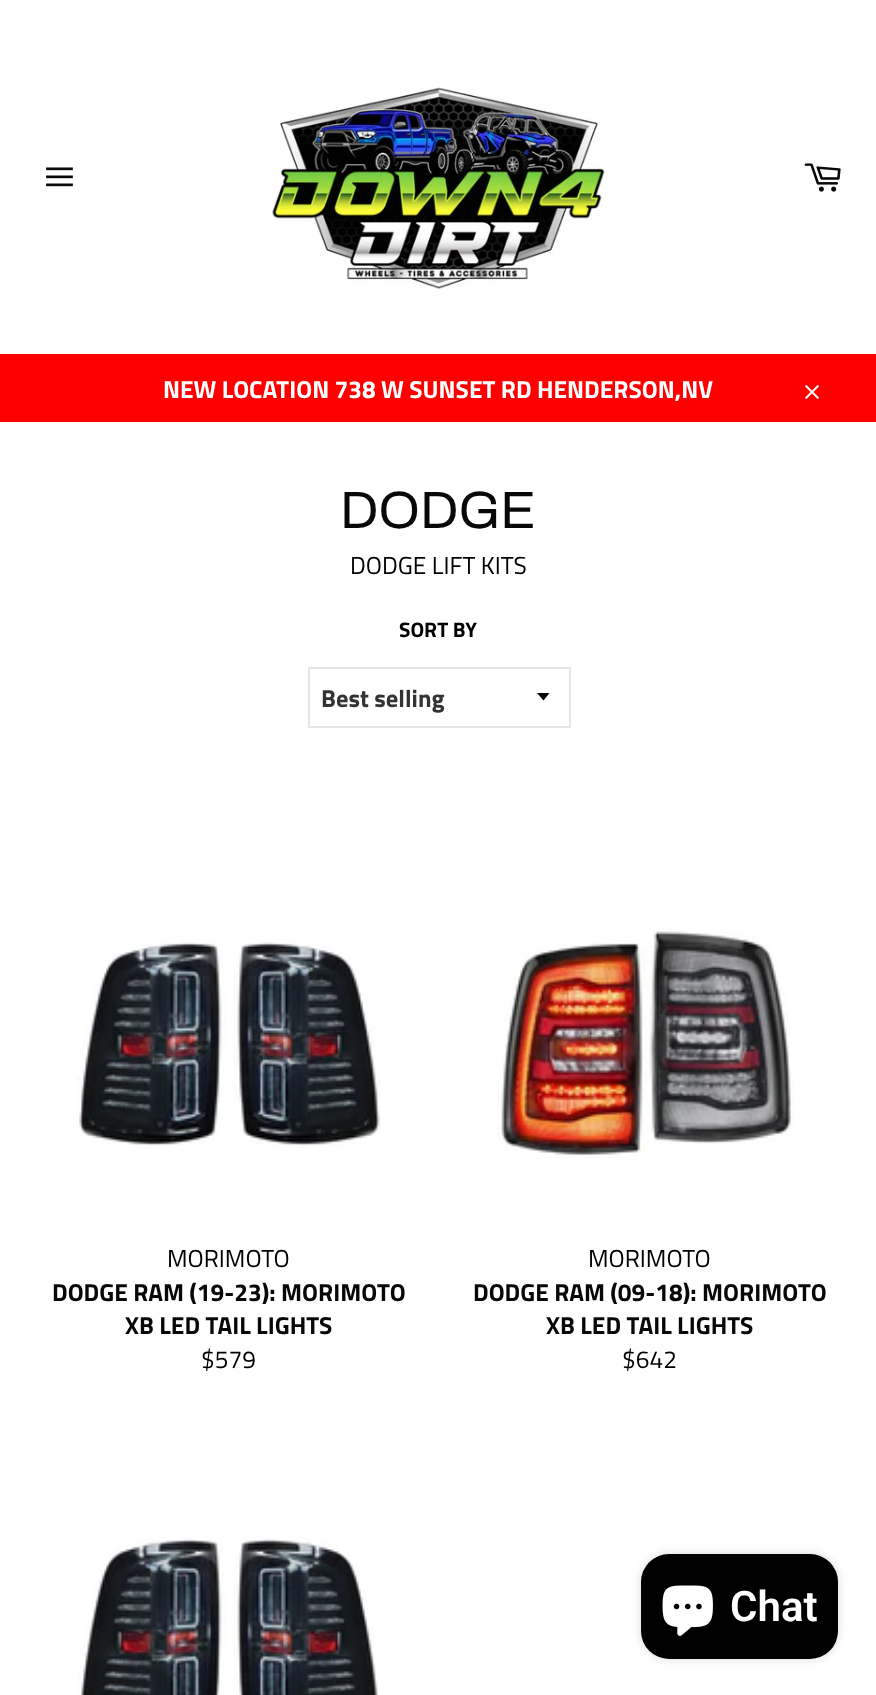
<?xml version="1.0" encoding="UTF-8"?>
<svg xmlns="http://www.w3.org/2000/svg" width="876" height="1695">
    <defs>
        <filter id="blur1" x="-50%" y="-200%" width="200%" height="500%"><feGaussianBlur stdDeviation="4.5"/></filter>
    </defs>
    <rect width="100%" height="100%" fill="#FFFFFF"/>
    <image x="46" y="167" width="27" height="20" href="img_01.png"/>
    <image x="272" y="87" width="333" height="202" href="img_02.png"/>
    <image x="804" y="163" width="37" height="29" href="img_03.png"/>
    <rect x="0" y="354" width="876" height="68" fill="#FF0000"/>
    <text x="163" y="398" font-family="Titillium Web" font-size="24.5" font-weight="700" fill="#FFFFFF">NEW LOCATION 738 W SUNSET RD HENDERSON,NV</text>
    <image x="805" y="385" width="14" height="14" href="img_04.png"/>
    <text x="340" y="528" font-family="Archivo" font-size="52.5" fill="#080808">DODGE</text>
    <text x="350" y="574" font-family="Titillium Web" font-size="24.5" fill="#000000">DODGE LIFT KITS</text>
    <text x="399" y="637" font-family="Titillium Web" font-size="21" font-weight="700" fill="#000000">SORT BY</text>
    <path d="M 537 693 L 543.5 700.5 L 549.5 693 Z" fill="#000000"/>
    <rect x="309" y="668" width="261" height="59" fill="none" stroke="#E6E6E6" stroke-width="2"/>
    <text x="321" y="707" font-family="Titillium Web" font-size="24.5" font-weight="700" fill="#333333">Best selling</text>
    <image x="76" y="942" width="305" height="204" href="img_05.png"/>
    <text x="167" y="1267" font-family="Titillium Web" font-size="24.5" fill="#000000">MORIMOTO</text>
    <text x="52" y="1301" font-family="Titillium Web" font-size="24.5" font-weight="700" fill="#080808">DODGE RAM (19-23): MORIMOTO</text>
    <text x="125" y="1334" font-family="Titillium Web" font-size="24.5" font-weight="700" fill="#080808">XB LED TAIL LIGHTS</text>
    <text x="201" y="1368" font-family="Titillium Web" font-size="24.5" fill="#000000">$579</text>
    <image x="496" y="928" width="298" height="230" href="img_06.png"/>
    <text x="588" y="1267" font-family="Titillium Web" font-size="24.5" fill="#000000">MORIMOTO</text>
    <text x="473" y="1301" font-family="Titillium Web" font-size="24.5" font-weight="700" fill="#080808">DODGE RAM (09-18): MORIMOTO</text>
    <text x="546" y="1334" font-family="Titillium Web" font-size="24.5" font-weight="700" fill="#080808">XB LED TAIL LIGHTS</text>
    <text x="622" y="1368" font-family="Titillium Web" font-size="24.5" fill="#000000">$642</text>
    <image x="78" y="1538" width="301" height="157" href="img_07.png"/>
    <rect x="641" y="1554" width="197" height="105" rx="28" fill="#000000" fill-opacity="0.15" filter="url(#blur1)"/>
    <rect x="641" y="1554" width="197" height="105" rx="28" fill="#000000"/>
    <image x="662" y="1585" width="51" height="51" href="img_08.png"/>
    <text x="730" y="1621" font-family="Roboto" font-size="42" font-weight="600" fill="#FFFFFF">Chat</text>
</svg>
